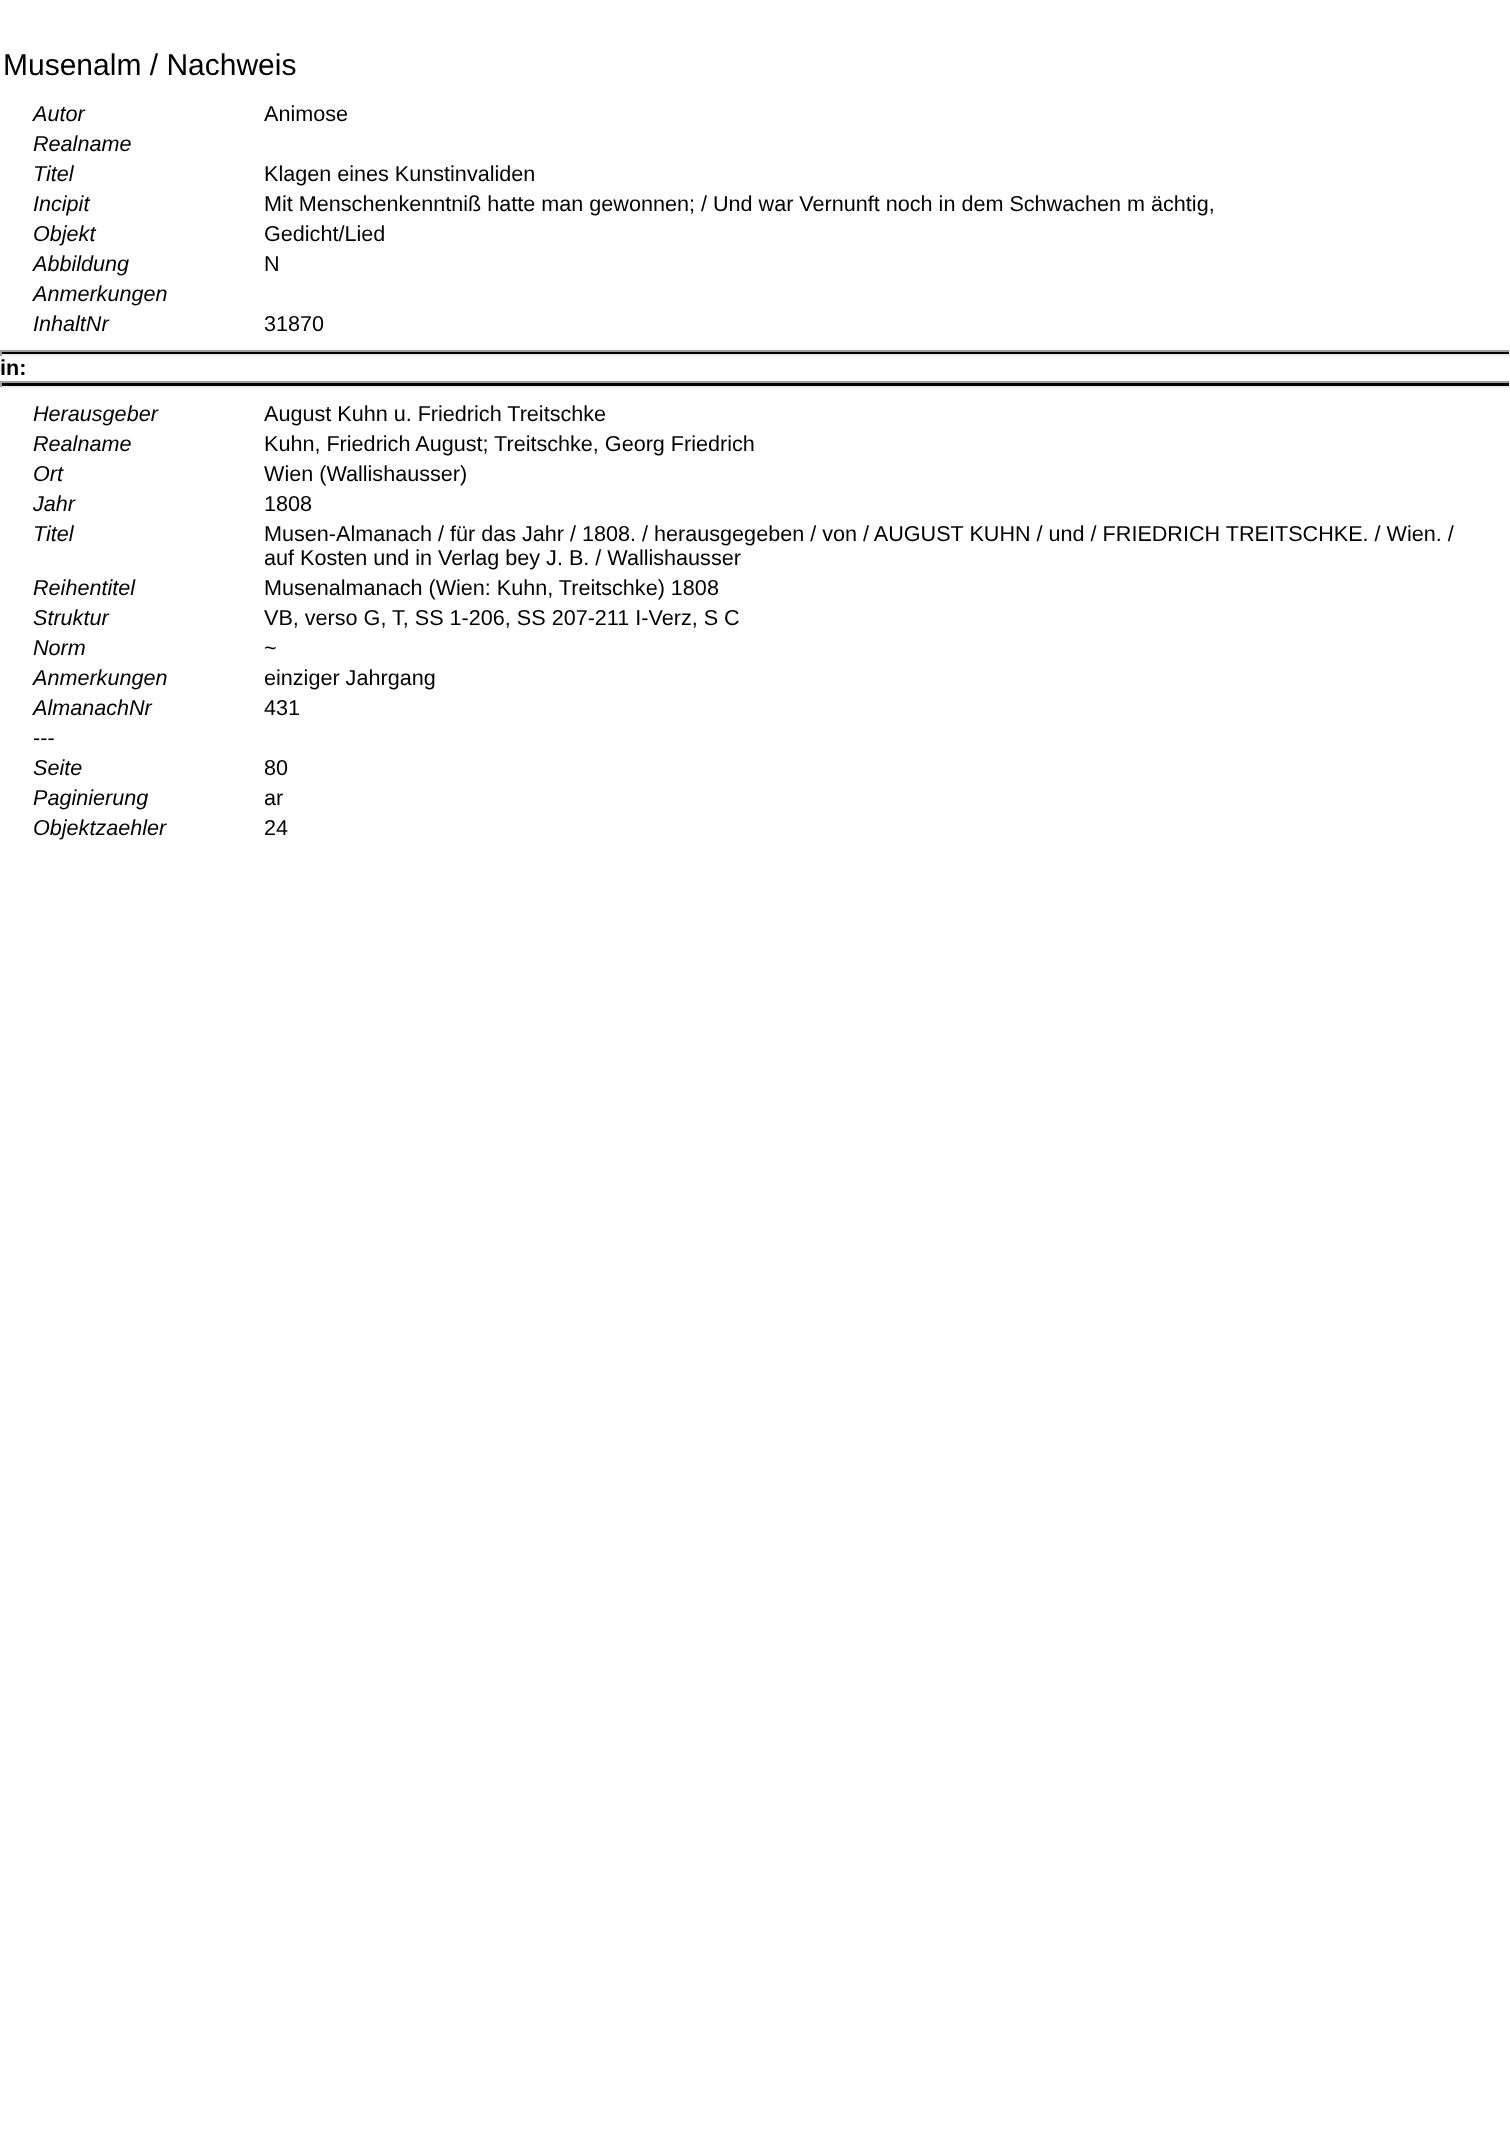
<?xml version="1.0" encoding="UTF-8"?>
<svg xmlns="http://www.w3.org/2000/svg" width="1510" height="2137">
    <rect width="100%" height="100%" fill="#FFFFFF"/>
    <text x="3" y="75" font-family="Liberation Sans" font-size="30" fill="#000000">Musenalm / Nachweis</text>
    <text x="33" y="121" font-family="Liberation Sans" font-size="21.6" font-style="italic" fill="#000000">Autor</text>
    <text x="264" y="121" font-family="Liberation Sans" font-size="21.6" fill="#000000">Animose</text>
    <text font-family="Liberation Sans" font-size="21.6" font-style="italic" fill="#000000">
        <tspan x="33" y="151">Realname</tspan>
        <tspan x="33" y="181">Titel</tspan>
    </text>
    <text x="264" y="181" font-family="Liberation Sans" font-size="21.6" fill="#000000">Klagen eines Kunstinvaliden</text>
    <text x="33" y="211" font-family="Liberation Sans" font-size="21.6" font-style="italic" fill="#000000">Incipit</text>
    <text x="264" y="211" font-family="Liberation Sans" font-size="21.6" fill="#000000">Mit Menschenkenntniß hatte man gewonnen; / Und war Vernunft noch in dem Schwachen m ächtig,</text>
    <text x="33" y="241" font-family="Liberation Sans" font-size="21.6" font-style="italic" fill="#000000">Objekt</text>
    <text x="264" y="241" font-family="Liberation Sans" font-size="21.6" fill="#000000">Gedicht/Lied</text>
    <text x="33" y="271" font-family="Liberation Sans" font-size="21.6" font-style="italic" fill="#000000">Abbildung</text>
    <text x="264" y="271" font-family="Liberation Sans" font-size="21.6" fill="#000000">N</text>
    <text font-family="Liberation Sans" font-size="21.6" font-style="italic" fill="#000000">
        <tspan x="33" y="301">Anmerkungen</tspan>
        <tspan x="33" y="331">InhaltNr</tspan>
    </text>
    <text x="264" y="331" font-family="Liberation Sans" font-size="21.6" fill="#000000">31870</text>
    <rect x="0" y="352" width="1510" height="2" fill="#000000"/>
    <rect x="0" y="350" width="1510" height="2" fill="#9F9F9F"/>
    <rect x="1509" y="350" width="1" height="6" fill="#EEEEEE"/>
    <rect x="0" y="354" width="1510" height="2" fill="#EEEEEE"/>
    <rect x="0" y="350" width="2" height="6" fill="#9F9F9F"/>
    <text x="0" y="375" font-family="Liberation Sans" font-size="21.6" font-weight="700" fill="#000000">in:</text>
    <rect x="0" y="383" width="1510" height="3" fill="#000000"/>
    <rect x="0" y="381" width="1510" height="2" fill="#9F9F9F"/>
    <rect x="1509" y="381" width="1" height="6" fill="#EEEEEE"/>
    <rect x="0" y="386" width="1510" height="2" fill="#EEEEEE"/>
    <rect x="0" y="381" width="2" height="6" fill="#9F9F9F"/>
    <text x="33" y="421" font-family="Liberation Sans" font-size="21.6" font-style="italic" fill="#000000">Herausgeber</text>
    <text x="264" y="421" font-family="Liberation Sans" font-size="21.6" fill="#000000">August Kuhn u. Friedrich Treitschke</text>
    <text x="33" y="451" font-family="Liberation Sans" font-size="21.6" font-style="italic" fill="#000000">Realname</text>
    <text x="264" y="451" font-family="Liberation Sans" font-size="21.6" fill="#000000">Kuhn, Friedrich August; Treitschke, Georg Friedrich</text>
    <text x="33" y="481" font-family="Liberation Sans" font-size="21.6" font-style="italic" fill="#000000">Ort</text>
    <text x="264" y="481" font-family="Liberation Sans" font-size="21.6" fill="#000000">Wien (Wallishausser)</text>
    <text x="33" y="511" font-family="Liberation Sans" font-size="21.6" font-style="italic" fill="#000000">Jahr</text>
    <text x="264" y="511" font-family="Liberation Sans" font-size="21.6" fill="#000000">1808</text>
    <text x="33" y="541" font-family="Liberation Sans" font-size="21.6" font-style="italic" fill="#000000">Titel</text>
    <text font-family="Liberation Sans" font-size="21.6" fill="#000000">
        <tspan x="264" y="541">Musen-Almanach / für das Jahr / 1808. / herausgegeben / von / AUGUST KUHN / und / FRIEDRICH TREITSCHKE. / Wien. /</tspan>
        <tspan x="264" y="565">auf Kosten und in Verlag bey J. B. / Wallishausser</tspan>
    </text>
    <text x="33" y="595" font-family="Liberation Sans" font-size="21.6" font-style="italic" fill="#000000">Reihentitel</text>
    <text x="264" y="595" font-family="Liberation Sans" font-size="21.6" fill="#000000">Musenalmanach (Wien: Kuhn, Treitschke) 1808</text>
    <text x="33" y="625" font-family="Liberation Sans" font-size="21.6" font-style="italic" fill="#000000">Struktur</text>
    <text x="264" y="625" font-family="Liberation Sans" font-size="21.6" fill="#000000">VB, verso G, T, SS 1-206, SS 207-211 I-Verz, S C</text>
    <text x="33" y="655" font-family="Liberation Sans" font-size="21.6" font-style="italic" fill="#000000">Norm</text>
    <text x="264" y="655" font-family="Liberation Sans" font-size="21.6" fill="#000000">~</text>
    <text x="33" y="685" font-family="Liberation Sans" font-size="21.6" font-style="italic" fill="#000000">Anmerkungen</text>
    <text x="264" y="685" font-family="Liberation Sans" font-size="21.6" fill="#000000">einziger Jahrgang</text>
    <text x="33" y="715" font-family="Liberation Sans" font-size="21.6" font-style="italic" fill="#000000">AlmanachNr</text>
    <text x="264" y="715" font-family="Liberation Sans" font-size="21.6" fill="#000000">431</text>
    <text x="33" y="745" font-family="Liberation Sans" font-size="21.6" fill="#000000">---</text>
    <text x="33" y="775" font-family="Liberation Sans" font-size="21.6" font-style="italic" fill="#000000">Seite</text>
    <text x="264" y="775" font-family="Liberation Sans" font-size="21.6" fill="#000000">80</text>
    <text x="33" y="805" font-family="Liberation Sans" font-size="21.6" font-style="italic" fill="#000000">Paginierung</text>
    <text x="264" y="805" font-family="Liberation Sans" font-size="21.6" fill="#000000">ar</text>
    <text x="33" y="835" font-family="Liberation Sans" font-size="21.6" font-style="italic" fill="#000000">Objektzaehler</text>
    <text x="264" y="835" font-family="Liberation Sans" font-size="21.6" fill="#000000">24</text>
</svg>
